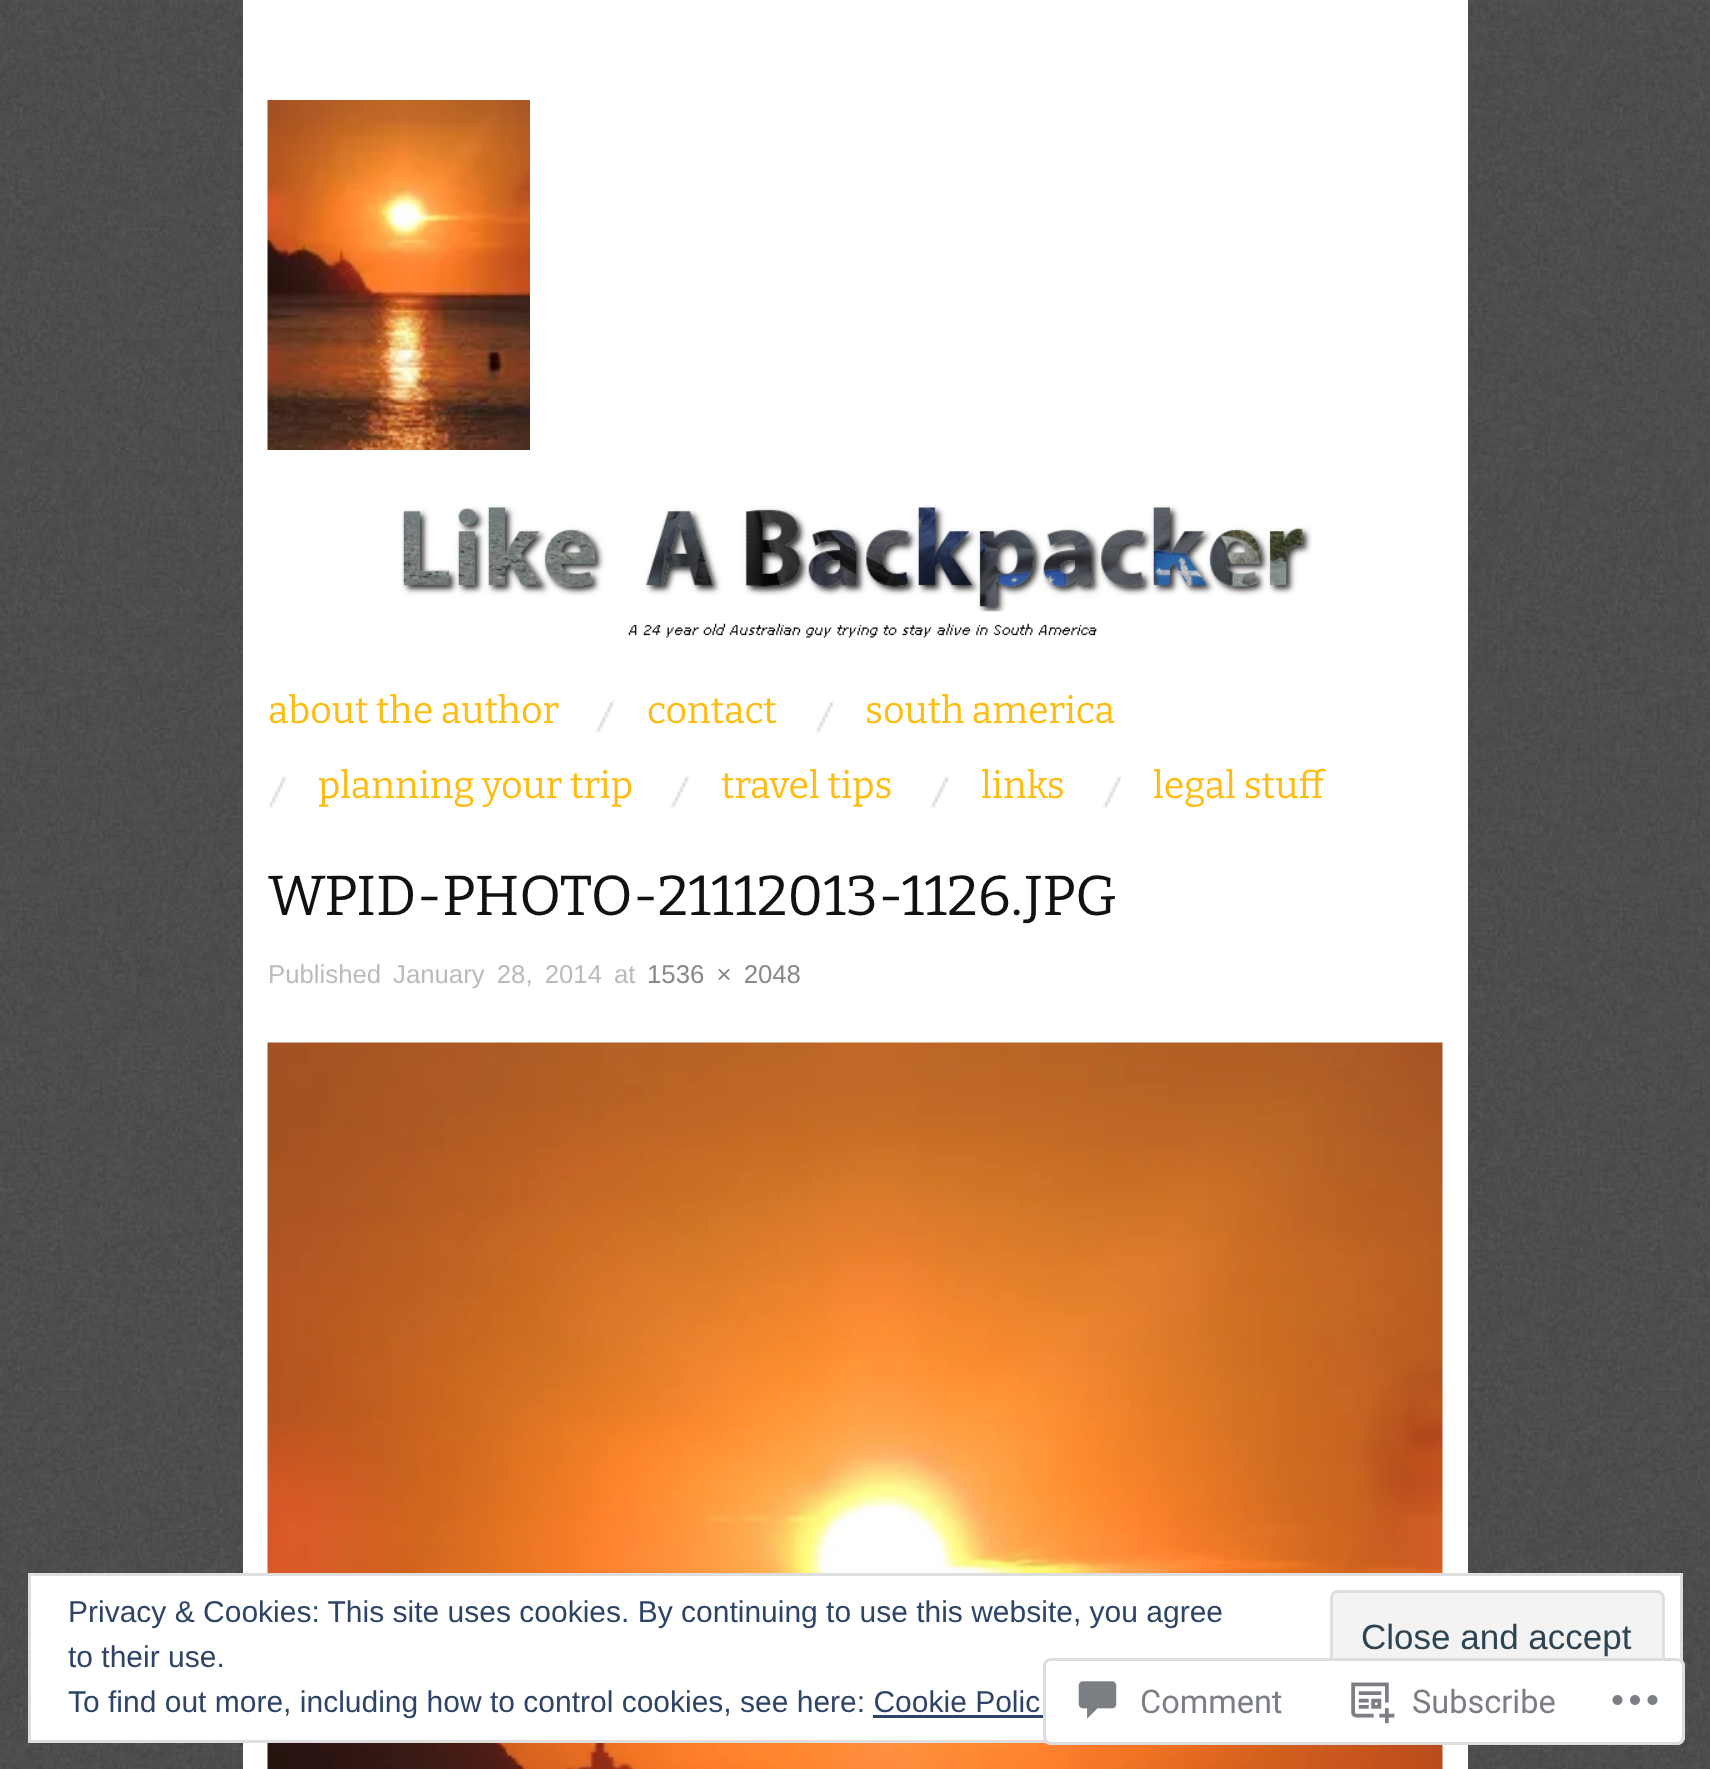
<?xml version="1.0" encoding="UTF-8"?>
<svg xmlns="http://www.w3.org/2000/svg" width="1710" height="1769">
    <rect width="100%" height="100%" fill="#FFFFFF"/>
    <image x="0" y="0" width="1710" height="1769" href="img_01.png"/>
    <rect x="243" y="0" width="1225" height="1769" fill="#FFFFFF"/>
    <image x="267" y="100" width="263" height="350" href="img_02.png"/>
    <image x="401" y="505" width="911" height="133" href="img_03.png"/>
    <text x="268" y="723" font-family="Bitter" font-size="37.5" font-weight="100" fill="#FFBC0F">about the author</text>
    <image x="595" y="700" width="20" height="33" href="img_04.png"/>
    <text x="647" y="723" font-family="Bitter" font-size="37.5" font-weight="100" fill="#FFBC0F">contact</text>
    <image x="815" y="700" width="20" height="33" href="img_05.png"/>
    <text x="865" y="723" font-family="Bitter" font-size="37.5" font-weight="100" fill="#FFBC0F">south america</text>
    <image x="267" y="775" width="21" height="33" href="img_06.png"/>
    <text x="318" y="798" font-family="Bitter" font-size="37.5" font-weight="100" fill="#FFBC0F">planning your trip</text>
    <image x="670" y="775" width="20" height="33" href="img_07.png"/>
    <text x="721" y="798" font-family="Bitter" font-size="37.5" font-weight="100" fill="#FFBC0F">travel tips</text>
    <image x="930" y="775" width="20" height="33" href="img_07.png"/>
    <text x="981" y="798" font-family="Bitter" font-size="37.5" font-weight="100" fill="#FFBC0F">links</text>
    <image x="1102" y="775" width="21" height="33" href="img_08.png"/>
    <text x="1153" y="798" font-family="Bitter" font-size="37.5" font-weight="100" fill="#FFBC0F">legal stuff</text>
    <text x="268" y="915" font-family="Bitter" font-size="56.25" font-weight="100" fill="#111111">WPID-PHOTO-21112013-1126.JPG</text>
    <text x="268" y="983" font-family="Liberation Sans" font-size="25.75" fill="#BBBBBB">Published</text>
    <text x="393" y="983" word-spacing="5" font-family="Liberation Sans" font-size="25.75" fill="#BBBBBB">January 28, 2014</text>
    <text x="614" y="983" font-family="Liberation Sans" font-size="25.75" fill="#BBBBBB">at</text>
    <text x="647" y="983" word-spacing="5" font-family="Liberation Sans" font-size="25.75" fill="#888888">1536 × 2048</text>
    <image x="267" y="1042" width="1176" height="727" href="img_09.png"/>
    <rect x="29.5" y="1574.5" width="1652" height="167" fill="#FFFFFF" stroke="#DEDEDE" stroke-width="3"/>
    <text font-family="Liberation Sans" font-size="30" fill="#2E4467">
        <tspan x="68" y="1622">Privacy &amp; Cookies: This site uses cookies. By continuing to use this website, you agree</tspan>
        <tspan x="68" y="1667">to their use.</tspan>
    </text>
    <rect x="1331.5" y="1591.5" width="332" height="95" rx="6.5" fill="#F3F3F3" stroke="#DEDEDE" stroke-width="3"/>
    <text x="1361" y="1649" font-family="Liberation Sans" font-size="35" fill="#2E4453">Close and accept</text>
    <text x="68" y="1712" font-family="Liberation Sans" font-size="30" fill="#2E4467">To find out more, including how to control cookies, see here: Cookie Polic</text>
    <rect x="873" y="1715" width="182" height="3" fill="#2E4467"/>
    <rect x="1043" y="1658" width="642" height="87" rx="8" fill="#FFFFFF" fill-opacity="0.98"/>
    <rect x="1044.5" y="1659.5" width="639" height="84" rx="6.5" fill="none" stroke="#DCDCDE" stroke-opacity="0.98" stroke-width="3"/>
    <image x="1078" y="1681" width="39" height="38" href="img_10.png"/>
    <text x="1140" y="1713" font-family="Roboto" font-size="32.5" fill="#7B7F85">Comment</text>
    <image x="1351" y="1682" width="44" height="42" href="img_11.png"/>
    <text x="1412" y="1713" font-family="Roboto" font-size="32.5" fill="#7B7F85">Subscribe</text>
    <image x="1612" y="1695" width="46" height="10" href="img_12.png"/>
</svg>
